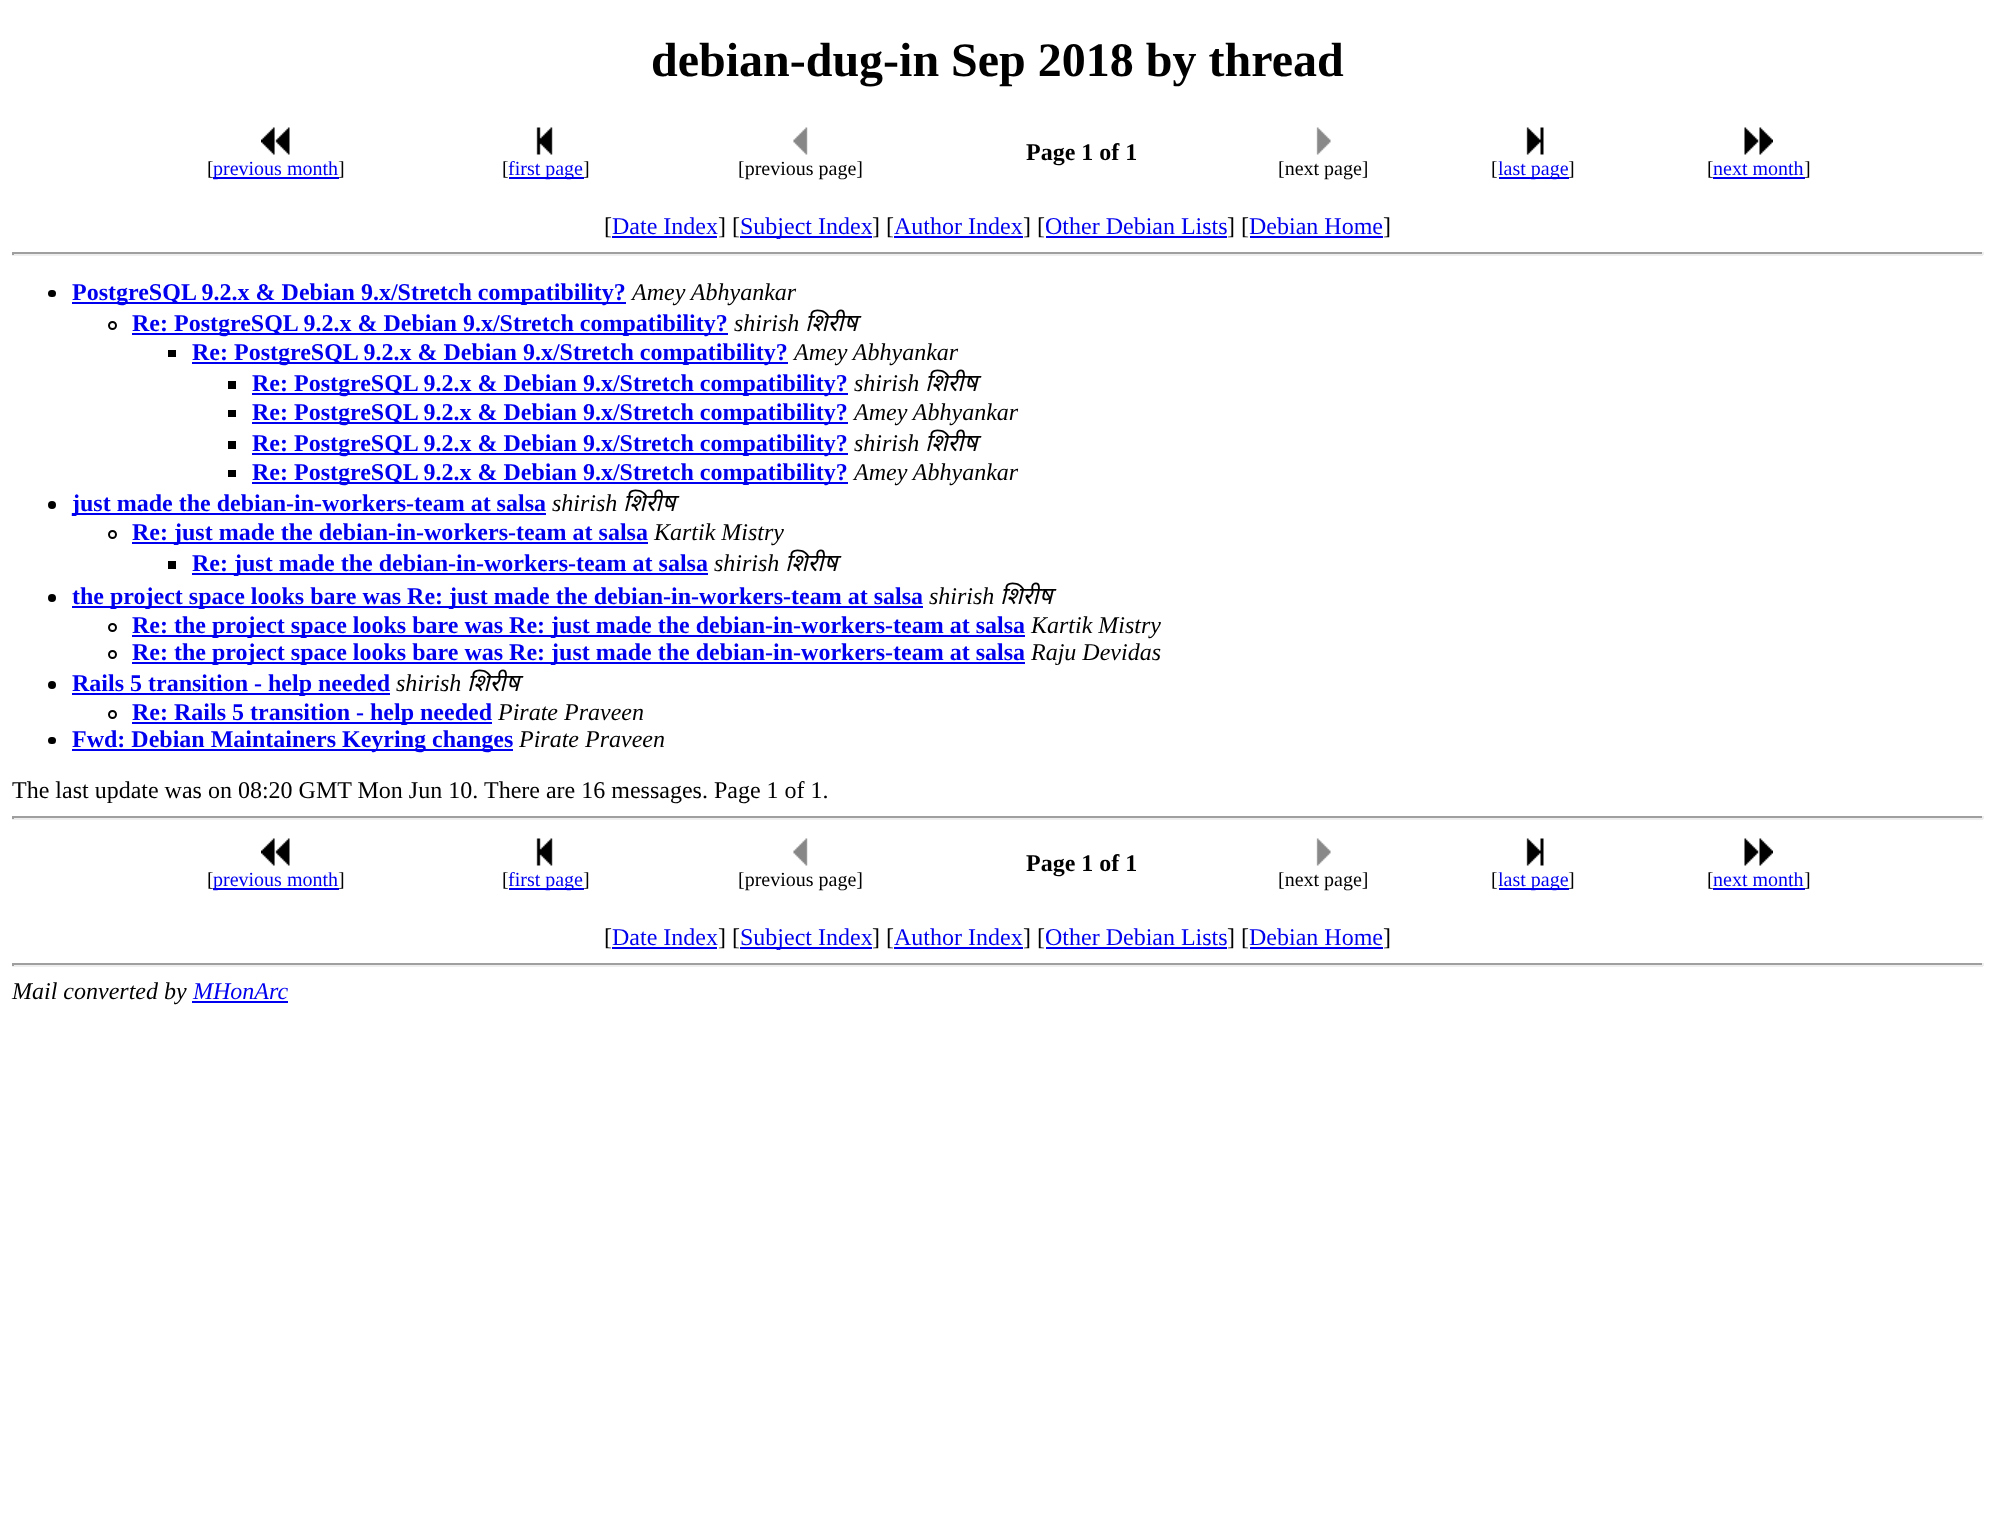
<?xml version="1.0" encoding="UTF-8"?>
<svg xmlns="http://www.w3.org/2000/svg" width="1995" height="1534">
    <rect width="100%" height="100%" fill="#FFFFFF"/>
    <text x="651" y="76" font-family="Liberation Serif" font-size="48" font-weight="700" fill="#000000">debian-dug-in Sep 2018 by thread</text>
    <text x="1026" y="160" font-family="Liberation Serif" font-size="24" font-weight="700" fill="#000000">Page 1 of 1</text>
    <image x="261" y="127" width="29" height="28" href="img_01.png"/>
    <text x="207" y="175" font-family="Liberation Serif" font-size="20" fill="#000000">[</text>
    <rect x="213" y="177" width="126" height="2" fill="#0000EE"/>
    <text x="213" y="175" font-family="Liberation Serif" font-size="20" fill="#0000EE">previous month</text>
    <text x="338" y="175" font-family="Liberation Serif" font-size="20" fill="#000000">]</text>
    <image x="536" y="127" width="17" height="28" href="img_02.png"/>
    <text x="502" y="175" font-family="Liberation Serif" font-size="20" fill="#000000">[</text>
    <rect x="509" y="177" width="75" height="2" fill="#0000EE"/>
    <text x="508" y="175" font-family="Liberation Serif" font-size="20" fill="#0000EE">first page</text>
    <text x="583" y="175" font-family="Liberation Serif" font-size="20" fill="#000000">]</text>
    <image x="793" y="127" width="15" height="28" href="img_03.png"/>
    <text x="738" y="175" font-family="Liberation Serif" font-size="20" fill="#000000">[previous page]</text>
    <image x="1316" y="127" width="15" height="28" href="img_04.png"/>
    <text x="1278" y="175" font-family="Liberation Serif" font-size="20" fill="#000000">[next page]</text>
    <image x="1526" y="127" width="18" height="28" href="img_05.png"/>
    <text x="1491" y="175" font-family="Liberation Serif" font-size="20" fill="#000000">[</text>
    <rect x="1499" y="177" width="70" height="2" fill="#0000EE"/>
    <text x="1498" y="175" font-family="Liberation Serif" font-size="20" fill="#0000EE">last page</text>
    <text x="1568" y="175" font-family="Liberation Serif" font-size="20" fill="#000000">]</text>
    <image x="1744" y="127" width="29" height="28" href="img_06.png"/>
    <text x="1707" y="175" font-family="Liberation Serif" font-size="20" fill="#000000">[</text>
    <rect x="1713" y="177" width="92" height="2" fill="#0000EE"/>
    <text x="1713" y="175" font-family="Liberation Serif" font-size="20" fill="#0000EE">next month</text>
    <text x="1804" y="175" font-family="Liberation Serif" font-size="20" fill="#000000">]</text>
    <text x="604" y="234" font-family="Liberation Serif" font-size="24" fill="#000000">[</text>
    <text x="612" y="234" font-family="Liberation Serif" font-size="24" fill="#0000EE">Date Index</text>
    <rect x="612" y="236" width="105" height="2" fill="#0000EE"/>
    <text x="718" y="234" font-family="Liberation Serif" font-size="24" fill="#000000">] [</text>
    <rect x="740" y="236" width="132" height="2" fill="#0000EE"/>
    <text x="740" y="234" font-family="Liberation Serif" font-size="24" fill="#0000EE">Subject Index</text>
    <text x="872" y="234" font-family="Liberation Serif" font-size="24" fill="#000000">] [</text>
    <text x="894" y="234" font-family="Liberation Serif" font-size="24" fill="#0000EE">Author Index</text>
    <rect x="894" y="236" width="129" height="2" fill="#0000EE"/>
    <text x="1023" y="234" font-family="Liberation Serif" font-size="24" fill="#000000">] [</text>
    <text x="1045" y="234" font-family="Liberation Serif" font-size="24" fill="#0000EE">Other Debian Lists</text>
    <rect x="1046" y="236" width="181" height="2" fill="#0000EE"/>
    <text x="1227" y="234" font-family="Liberation Serif" font-size="24" fill="#000000">] [</text>
    <text x="1249" y="234" font-family="Liberation Serif" font-size="24" fill="#0000EE">Debian Home</text>
    <rect x="1250" y="236" width="133" height="2" fill="#0000EE"/>
    <text x="1383" y="234" font-family="Liberation Serif" font-size="24" fill="#000000">]</text>
    <rect x="12" y="252" width="1971" height="2" fill="#9F9F9F"/>
    <rect x="1982" y="252" width="2" height="3" fill="#EEEEEE"/>
    <rect x="12" y="254" width="1971" height="2" fill="#EEEEEE"/>
    <rect x="12" y="252" width="2" height="3" fill="#9F9F9F"/>
    <rect x="48" y="290" width="8" height="7" rx="3.5" fill="#000000"/>
    <rect x="72" y="302" width="554" height="2" fill="#0000EE"/>
    <text x="72" y="300" font-family="Liberation Serif" font-size="24" font-weight="700" fill="#0000EE">PostgreSQL 9.2.x &amp; Debian 9.x/Stretch compatibility?</text>
    <text x="632" y="300" font-family="Liberation Serif" font-size="24" font-style="italic" fill="#000000">Amey Abhyankar</text>
    <circle cx="112.5" cy="325.5" r="3.5" fill="none" stroke="#000000" stroke-width="2"/>
    <rect x="132" y="333" width="596" height="2" fill="#0000EE"/>
    <text x="132" y="331" font-family="Liberation Serif" font-size="24" font-weight="700" fill="#0000EE">Re: PostgreSQL 9.2.x &amp; Debian 9.x/Stretch compatibility?</text>
    <text x="734" y="331" font-family="Liberation Serif" font-size="24" font-style="italic" fill="#000000">shirish</text>
    <text x="805" y="331" font-family="Noto Sans" font-size="24" font-style="italic" fill="#000000">शिरीष</text>
    <rect x="168" y="350" width="8" height="7" fill="#000000"/>
    <rect x="192" y="362" width="596" height="2" fill="#0000EE"/>
    <text x="192" y="360" font-family="Liberation Serif" font-size="24" font-weight="700" fill="#0000EE">Re: PostgreSQL 9.2.x &amp; Debian 9.x/Stretch compatibility?</text>
    <text x="794" y="360" font-family="Liberation Serif" font-size="24" font-style="italic" fill="#000000">Amey Abhyankar</text>
    <rect x="228" y="381" width="8" height="8" fill="#000000"/>
    <rect x="252" y="393" width="596" height="2" fill="#0000EE"/>
    <text x="252" y="391" font-family="Liberation Serif" font-size="24" font-weight="700" fill="#0000EE">Re: PostgreSQL 9.2.x &amp; Debian 9.x/Stretch compatibility?</text>
    <text x="854" y="391" font-family="Liberation Serif" font-size="24" font-style="italic" fill="#000000">shirish</text>
    <text x="925" y="391" font-family="Noto Sans" font-size="24" font-style="italic" fill="#000000">शिरीष</text>
    <rect x="228" y="410" width="8" height="7" fill="#000000"/>
    <rect x="252" y="422" width="596" height="2" fill="#0000EE"/>
    <text x="252" y="420" font-family="Liberation Serif" font-size="24" font-weight="700" fill="#0000EE">Re: PostgreSQL 9.2.x &amp; Debian 9.x/Stretch compatibility?</text>
    <text x="854" y="420" font-family="Liberation Serif" font-size="24" font-style="italic" fill="#000000">Amey Abhyankar</text>
    <rect x="228" y="441" width="8" height="8" fill="#000000"/>
    <rect x="252" y="453" width="596" height="2" fill="#0000EE"/>
    <text x="252" y="451" font-family="Liberation Serif" font-size="24" font-weight="700" fill="#0000EE">Re: PostgreSQL 9.2.x &amp; Debian 9.x/Stretch compatibility?</text>
    <text x="854" y="451" font-family="Liberation Serif" font-size="24" font-style="italic" fill="#000000">shirish</text>
    <text x="925" y="451" font-family="Noto Sans" font-size="24" font-style="italic" fill="#000000">शिरीष</text>
    <rect x="228" y="470" width="8" height="7" fill="#000000"/>
    <rect x="252" y="482" width="596" height="2" fill="#0000EE"/>
    <text x="252" y="480" font-family="Liberation Serif" font-size="24" font-weight="700" fill="#0000EE">Re: PostgreSQL 9.2.x &amp; Debian 9.x/Stretch compatibility?</text>
    <text x="854" y="480" font-family="Liberation Serif" font-size="24" font-style="italic" fill="#000000">Amey Abhyankar</text>
    <circle cx="52" cy="505" r="4" fill="#000000"/>
    <rect x="72" y="513" width="474" height="2" fill="#0000EE"/>
    <text x="72" y="511" font-family="Liberation Serif" font-size="24" font-weight="700" fill="#0000EE">just made the debian-in-workers-team at salsa</text>
    <text x="552" y="511" font-family="Liberation Serif" font-size="24" font-style="italic" fill="#000000">shirish</text>
    <text x="623" y="511" font-family="Noto Sans" font-size="24" font-style="italic" fill="#000000">शिरीष</text>
    <circle cx="112.5" cy="534.5" r="3.5" fill="none" stroke="#000000" stroke-width="2"/>
    <rect x="132" y="542" width="516" height="2" fill="#0000EE"/>
    <text x="132" y="540" font-family="Liberation Serif" font-size="24" font-weight="700" fill="#0000EE">Re: just made the debian-in-workers-team at salsa</text>
    <text x="654" y="540" font-family="Liberation Serif" font-size="24" font-style="italic" fill="#000000">Kartik Mistry</text>
    <rect x="168" y="561" width="8" height="8" fill="#000000"/>
    <rect x="192" y="573" width="516" height="2" fill="#0000EE"/>
    <text x="192" y="571" font-family="Liberation Serif" font-size="24" font-weight="700" fill="#0000EE">Re: just made the debian-in-workers-team at salsa</text>
    <text x="714" y="571" font-family="Liberation Serif" font-size="24" font-style="italic" fill="#000000">shirish</text>
    <text x="785" y="571" font-family="Noto Sans" font-size="24" font-style="italic" fill="#000000">शिरीष</text>
    <circle cx="52" cy="598" r="4" fill="#000000"/>
    <rect x="72" y="606" width="851" height="2" fill="#0000EE"/>
    <text x="72" y="604" font-family="Liberation Serif" font-size="24" font-weight="700" fill="#0000EE">the project space looks bare was Re: just made the debian-in-workers-team at salsa</text>
    <text x="929" y="604" font-family="Liberation Serif" font-size="24" font-style="italic" fill="#000000">shirish</text>
    <text x="1000" y="604" font-family="Noto Sans" font-size="24" font-style="italic" fill="#000000">शिरीष</text>
    <circle cx="112.5" cy="627.5" r="3.5" fill="none" stroke="#000000" stroke-width="2"/>
    <rect x="132" y="635" width="893" height="2" fill="#0000EE"/>
    <text x="132" y="633" font-family="Liberation Serif" font-size="24" font-weight="700" fill="#0000EE">Re: the project space looks bare was Re: just made the debian-in-workers-team at salsa</text>
    <text x="1031" y="633" font-family="Liberation Serif" font-size="24" font-style="italic" fill="#000000">Kartik Mistry</text>
    <circle cx="112.5" cy="654.5" r="3.5" fill="none" stroke="#000000" stroke-width="2"/>
    <rect x="132" y="662" width="893" height="2" fill="#0000EE"/>
    <text x="132" y="660" font-family="Liberation Serif" font-size="24" font-weight="700" fill="#0000EE">Re: the project space looks bare was Re: just made the debian-in-workers-team at salsa</text>
    <text x="1031" y="660" font-family="Liberation Serif" font-size="24" font-style="italic" fill="#000000">Raju Devidas</text>
    <circle cx="52" cy="685" r="4" fill="#000000"/>
    <rect x="72" y="693" width="318" height="2" fill="#0000EE"/>
    <text x="72" y="691" font-family="Liberation Serif" font-size="24" font-weight="700" fill="#0000EE">Rails 5 transition - help needed</text>
    <text x="396" y="691" font-family="Liberation Serif" font-size="24" font-style="italic" fill="#000000">shirish</text>
    <text x="467" y="691" font-family="Noto Sans" font-size="24" font-style="italic" fill="#000000">शिरीष</text>
    <circle cx="112.5" cy="714.5" r="3.5" fill="none" stroke="#000000" stroke-width="2"/>
    <rect x="132" y="722" width="360" height="2" fill="#0000EE"/>
    <text x="132" y="720" font-family="Liberation Serif" font-size="24" font-weight="700" fill="#0000EE">Re: Rails 5 transition - help needed</text>
    <text x="498" y="720" font-family="Liberation Serif" font-size="24" font-style="italic" fill="#000000">Pirate Praveen</text>
    <rect x="48" y="737" width="8" height="7" rx="3.5" fill="#000000"/>
    <rect x="72" y="749" width="441" height="2" fill="#0000EE"/>
    <text x="72" y="747" font-family="Liberation Serif" font-size="24" font-weight="700" fill="#0000EE">Fwd: Debian Maintainers Keyring changes</text>
    <text x="519" y="747" font-family="Liberation Serif" font-size="24" font-style="italic" fill="#000000">Pirate Praveen</text>
    <text x="12" y="798" font-family="Liberation Serif" font-size="24" fill="#000000">The last update was on 08:20 GMT Mon Jun 10.</text>
    <text x="484" y="798" font-family="Liberation Serif" font-size="24" fill="#000000">There are 16 messages. Page 1 of 1.</text>
    <rect x="12" y="816" width="1971" height="2" fill="#9F9F9F"/>
    <rect x="1982" y="816" width="2" height="3" fill="#EEEEEE"/>
    <rect x="12" y="818" width="1971" height="2" fill="#EEEEEE"/>
    <rect x="12" y="816" width="2" height="3" fill="#9F9F9F"/>
    <text x="1026" y="871" font-family="Liberation Serif" font-size="24" font-weight="700" fill="#000000">Page 1 of 1</text>
    <image x="261" y="838" width="29" height="28" href="img_01.png"/>
    <text x="207" y="886" font-family="Liberation Serif" font-size="20" fill="#000000">[</text>
    <rect x="213" y="888" width="126" height="2" fill="#0000EE"/>
    <text x="213" y="886" font-family="Liberation Serif" font-size="20" fill="#0000EE">previous month</text>
    <text x="338" y="886" font-family="Liberation Serif" font-size="20" fill="#000000">]</text>
    <image x="536" y="838" width="17" height="28" href="img_02.png"/>
    <text x="502" y="886" font-family="Liberation Serif" font-size="20" fill="#000000">[</text>
    <rect x="509" y="888" width="75" height="2" fill="#0000EE"/>
    <text x="508" y="886" font-family="Liberation Serif" font-size="20" fill="#0000EE">first page</text>
    <text x="583" y="886" font-family="Liberation Serif" font-size="20" fill="#000000">]</text>
    <image x="793" y="838" width="15" height="28" href="img_03.png"/>
    <text x="738" y="886" font-family="Liberation Serif" font-size="20" fill="#000000">[previous page]</text>
    <image x="1316" y="838" width="15" height="28" href="img_04.png"/>
    <text x="1278" y="886" font-family="Liberation Serif" font-size="20" fill="#000000">[next page]</text>
    <image x="1526" y="838" width="18" height="28" href="img_05.png"/>
    <text x="1491" y="886" font-family="Liberation Serif" font-size="20" fill="#000000">[</text>
    <rect x="1499" y="888" width="70" height="2" fill="#0000EE"/>
    <text x="1498" y="886" font-family="Liberation Serif" font-size="20" fill="#0000EE">last page</text>
    <text x="1568" y="886" font-family="Liberation Serif" font-size="20" fill="#000000">]</text>
    <image x="1744" y="838" width="29" height="28" href="img_06.png"/>
    <text x="1707" y="886" font-family="Liberation Serif" font-size="20" fill="#000000">[</text>
    <rect x="1713" y="888" width="92" height="2" fill="#0000EE"/>
    <text x="1713" y="886" font-family="Liberation Serif" font-size="20" fill="#0000EE">next month</text>
    <text x="1804" y="886" font-family="Liberation Serif" font-size="20" fill="#000000">]</text>
    <text x="604" y="945" font-family="Liberation Serif" font-size="24" fill="#000000">[</text>
    <text x="612" y="945" font-family="Liberation Serif" font-size="24" fill="#0000EE">Date Index</text>
    <rect x="612" y="947" width="105" height="2" fill="#0000EE"/>
    <text x="718" y="945" font-family="Liberation Serif" font-size="24" fill="#000000">] [</text>
    <rect x="740" y="947" width="132" height="2" fill="#0000EE"/>
    <text x="740" y="945" font-family="Liberation Serif" font-size="24" fill="#0000EE">Subject Index</text>
    <text x="872" y="945" font-family="Liberation Serif" font-size="24" fill="#000000">] [</text>
    <text x="894" y="945" font-family="Liberation Serif" font-size="24" fill="#0000EE">Author Index</text>
    <rect x="894" y="947" width="129" height="2" fill="#0000EE"/>
    <text x="1023" y="945" font-family="Liberation Serif" font-size="24" fill="#000000">] [</text>
    <text x="1045" y="945" font-family="Liberation Serif" font-size="24" fill="#0000EE">Other Debian Lists</text>
    <rect x="1046" y="947" width="181" height="2" fill="#0000EE"/>
    <text x="1227" y="945" font-family="Liberation Serif" font-size="24" fill="#000000">] [</text>
    <text x="1249" y="945" font-family="Liberation Serif" font-size="24" fill="#0000EE">Debian Home</text>
    <rect x="1250" y="947" width="133" height="2" fill="#0000EE"/>
    <text x="1383" y="945" font-family="Liberation Serif" font-size="24" fill="#000000">]</text>
    <rect x="12" y="963" width="1971" height="2" fill="#9F9F9F"/>
    <rect x="1982" y="963" width="2" height="3" fill="#EEEEEE"/>
    <rect x="12" y="965" width="1971" height="2" fill="#EEEEEE"/>
    <rect x="12" y="963" width="2" height="3" fill="#9F9F9F"/>
    <text x="12" y="999" font-family="Liberation Serif" font-size="24" font-style="italic" fill="#000000">Mail converted by</text>
    <text x="193" y="999" font-family="Liberation Serif" font-size="24" font-style="italic" fill="#0000EE">MHonArc</text>
    <rect x="192" y="1001" width="96" height="2" fill="#0000EE"/>
</svg>
